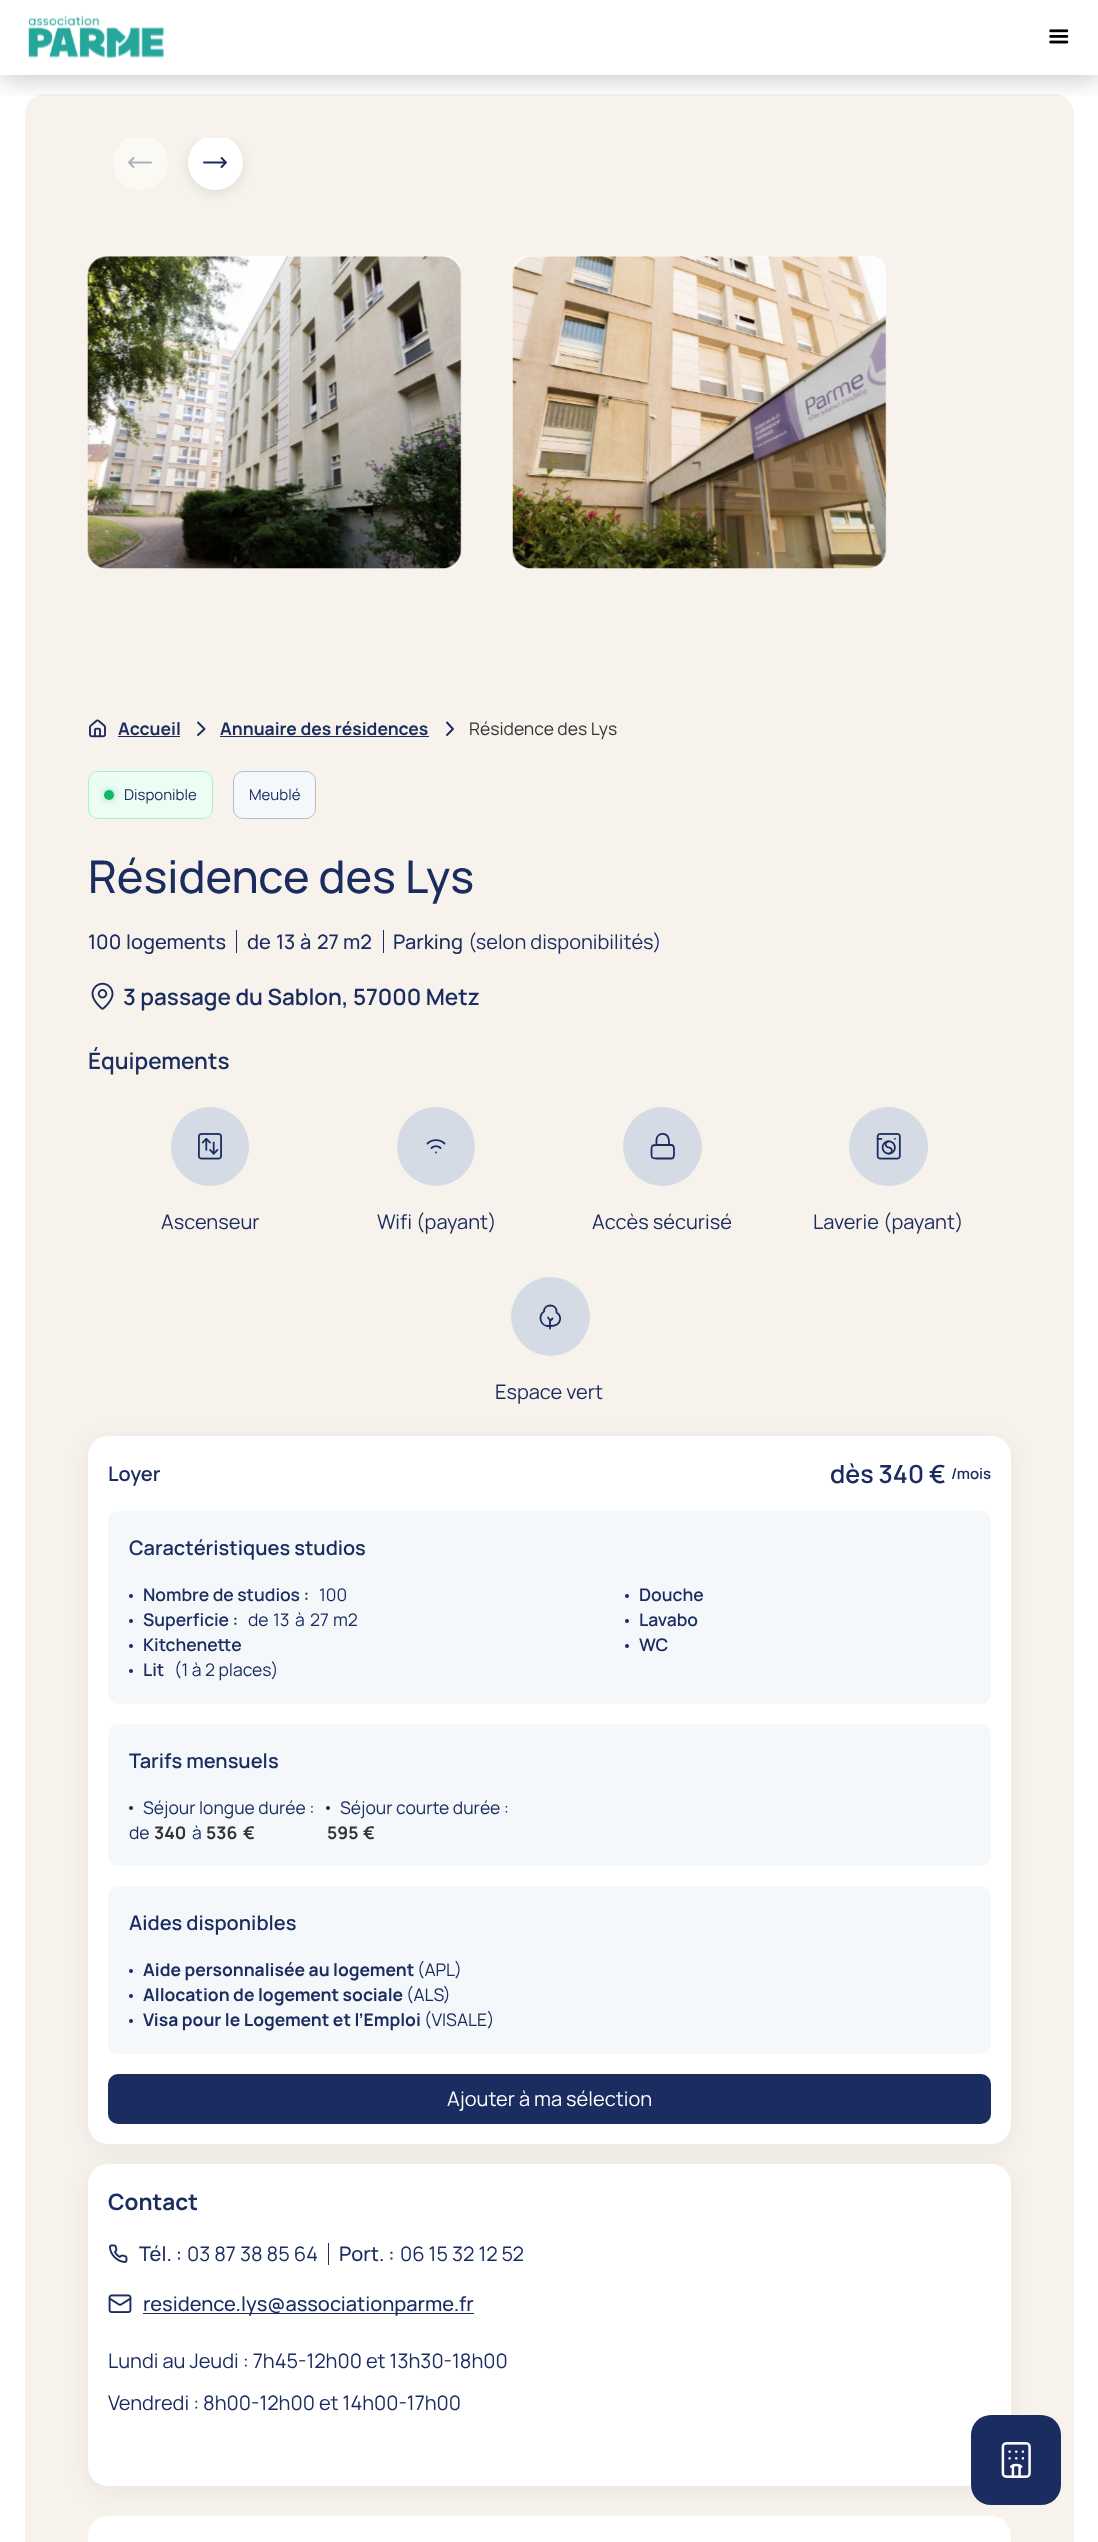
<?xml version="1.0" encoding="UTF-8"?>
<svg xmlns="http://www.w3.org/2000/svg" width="1098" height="2542">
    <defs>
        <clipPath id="clip1"><rect x="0" y="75" width="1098" height="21"/></clipPath>
        <filter id="blur1" x="-50%" y="-200%" width="200%" height="500%"><feGaussianBlur stdDeviation="12.5"/></filter>
        <clipPath id="clip2"><rect x="88" y="138" width="923" height="550" rx="15"/></clipPath>
        <clipPath id="clip3"><rect x="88" y="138" width="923" height="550" rx="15"/></clipPath>
        <filter id="blur2" x="-50%" y="-200%" width="200%" height="500%"><feGaussianBlur stdDeviation="6"/></filter>
        <filter id="blur3" x="-50%" y="-200%" width="200%" height="500%"><feGaussianBlur stdDeviation="3"/></filter>
    </defs>
    <rect width="100%" height="100%" fill="#FFFFFF"/>
    <rect x="25" y="94" width="1049" height="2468" rx="20" fill="#F7F3EC"/>
    <g clip-path="url(#clip1)">
        <rect x="0" y="5" width="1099" height="75" fill="#000000" fill-opacity="0.2" filter="url(#blur1)"/>
    </g>
    <image x="28" y="15" width="136" height="44" href="img_01.png"/>
    <image x="1049" y="29" width="20" height="15" href="img_02.png"/>
    <g clip-path="url(#clip2)">
        <circle cx="140.5" cy="162.5" r="27.5" fill="#FBF9F3"/>
    </g>
    <path d="M 133.5 167 L 129 162.5 M 129 162.5 L 133.5 158 M 129 162.5 H 151" fill="none" stroke="#ABAFBC" stroke-width="1.9" stroke-linecap="round" stroke-linejoin="round"/>
    <g clip-path="url(#clip3)">
        <rect x="188" y="138" width="55" height="55" rx="27.5" fill="#000000" fill-opacity="0.1" filter="url(#blur2)"/>
    </g>
    <g clip-path="url(#clip2)">
        <circle cx="215.5" cy="162.5" r="27.5" fill="#FFFFFF"/>
    </g>
    <path d="M 221.5 167 L 226 162.5 M 226 162.5 L 221.5 158 M 226 162.5 H 204" fill="none" stroke="#1A2C60" stroke-width="1.9" stroke-linecap="round" stroke-linejoin="round"/>
    <rect x="88" y="256" width="373" height="313" rx="15" fill="#FFFFFF"/>
    <image x="87" y="256" width="375" height="313" href="img_03.png"/>
    <rect x="513" y="256" width="373" height="313" rx="15" fill="#FFFFFF"/>
    <image x="512" y="256" width="375" height="313" href="img_04.png"/>
    <image x="89" y="719" width="17" height="19" href="img_05.png"/>
    <text x="118" y="735" font-family="Manrope" font-size="17.5" font-weight="700" fill="#1A2C60">Accueil</text>
    <rect x="118" y="736" width="62" height="1" fill="#1A2C60"/>
    <path d="M 198 722.5 L 204.5 729 L 198 735" fill="none" stroke="#1A2C60" stroke-width="1.9" stroke-linecap="round" stroke-linejoin="round"/>
    <text x="220" y="735" font-family="Manrope" font-size="17.5" font-weight="700" fill="#1A2C60">Annuaire des résidences</text>
    <rect x="220" y="736" width="209" height="1" fill="#1A2C60"/>
    <path d="M 447 722.5 L 453 729 L 447 735" fill="none" stroke="#1A2C60" stroke-width="1.9" stroke-linecap="round" stroke-linejoin="round"/>
    <text x="469" y="735" font-family="Manrope" font-size="17.5" fill="#333333">Résidence des Lys</text>
    <rect x="88.5" y="771.5" width="124" height="47" rx="9.5" fill="#ECFDF3" stroke="#A6F4C5"/>
    <rect x="103" y="789" width="12" height="12" rx="6" fill="#039855" fill-opacity="0.25" filter="url(#blur3)"/>
    <circle cx="109" cy="795" r="5" fill="#12B76A"/>
    <text x="124" y="800" font-family="Manrope" font-size="15" fill="#1A2C60">Disponible</text>
    <rect x="233.5" y="771.5" width="82" height="47" rx="9.5" fill="#F5F8FB" stroke="#B5BECF"/>
    <text x="249" y="800" font-family="Manrope" font-size="15" fill="#1A2C60">Meublé</text>
    <text x="88" y="893" font-family="Manrope" font-size="45" font-weight="500" fill="#1A2C60">Résidence des Lys</text>
    <text x="88" y="949" font-family="Manrope" font-size="20" font-weight="500" fill="#1A2C60">100</text>
    <text x="126" y="949" font-family="Manrope" font-size="20" font-weight="500" fill="#1A2C60">logements</text>
    <rect x="236" y="930" width="1" height="23" fill="#1A2C60"/>
    <text x="247" y="949" font-family="Manrope" font-size="20" font-weight="500" fill="#1A2C60">de</text>
    <text x="276" y="949" font-family="Manrope" font-size="20" font-weight="500" fill="#1A2C60">13</text>
    <text x="300" y="949" font-family="Manrope" font-size="20" font-weight="500" fill="#1A2C60">à</text>
    <text x="317" y="949" font-family="Manrope" font-size="20" font-weight="500" fill="#1A2C60">27</text>
    <text x="343" y="949" font-family="Manrope" font-size="20" font-weight="500" fill="#1A2C60">m2</text>
    <rect x="383" y="930" width="1" height="23" fill="#1A2C60"/>
    <text x="393" y="949" font-family="Manrope" font-size="20" font-weight="500" fill="#1A2C60">Parking</text>
    <text x="468" y="949" font-family="Manrope" font-size="20" fill="#1A2C60">(selon disponibilités)</text>
    <image x="91" y="982" width="23" height="28" href="img_06.png"/>
    <text x="123" y="1005" font-family="Manrope" font-size="22.5" font-weight="600" fill="#1A2C60">3 passage du Sablon, 57000 Metz</text>
    <text x="88" y="1069" font-family="Manrope" font-size="22.5" font-weight="600" fill="#1A2C60">Équipements</text>
    <image x="171" y="1107" width="78" height="79" href="img_07.png"/>
    <text x="161" y="1229" font-family="Manrope" font-size="20" fill="#1A2C60">Ascenseur</text>
    <rect x="397" y="1107" width="78" height="79" rx="39" fill="#D4DBE5"/>
    <path d="M 436 1152.5 H 436 M 427.5 1143.5 C 432 1139 440 1139 444.5 1143.5 M 431.5 1148 C 434 1145.5 438 1145.5 440.5 1148" fill="none" stroke="#1A2C60" stroke-width="1.8" stroke-linecap="round" stroke-linejoin="round"/>
    <text x="377" y="1229" font-family="Manrope" font-size="20" fill="#1A2C60">Wifi (payant)</text>
    <circle cx="662.5" cy="1146.5" r="39.5" fill="#D4DBE5"/>
    <path d="M 671.5 1145 H 657 C 651 1145 651.5 1146 651.5 1152 C 651.5 1157.5 651 1158.5 657 1158.5 H 671.5 C 674.5 1158.5 674 1154 674 1152 C 674 1150 674.5 1145 671.5 1145 Z M 656.5 1145 C 656.5 1142.5 656 1140 657 1137.5 C 659 1133 666 1132.5 668 1137 C 669.5 1139.5 669 1142.5 669 1145" fill="none" stroke="#1A2C60" stroke-width="1.8" stroke-linecap="round" stroke-linejoin="round"/>
    <text x="592" y="1229" font-family="Manrope" font-size="20" fill="#1A2C60">Accès sécurisé</text>
    <image x="849" y="1107" width="79" height="79" href="img_08.png"/>
    <text x="813" y="1229" font-family="Manrope" font-size="20" fill="#1A2C60">Laverie (payant)</text>
    <circle cx="550.5" cy="1316.5" r="39.5" fill="#D4DBE5"/>
    <path d="M 550 1328.5 V 1320 L 548 1317.5 M 556.5 1311.5 V 1312.5 C 559 1314 560.5 1317 560 1320 C 559 1325 555 1326 550.5 1326 H 546.5 C 542.5 1325 540 1321 540.5 1317 C 541 1314.5 542 1312.5 544 1311.5 C 544 1303.5 556.5 1303.5 556.5 1311.5 Z M 552.5 1318.5 L 550 1321" fill="none" stroke="#1A2C60" stroke-width="1.8" stroke-linecap="round" stroke-linejoin="round"/>
    <text x="495" y="1399" font-family="Manrope" font-size="20" fill="#1A2C60">Espace vert</text>
    <rect x="88" y="1441" width="923" height="708" rx="20" fill="#000000" fill-opacity="0.06" filter="url(#blur1)"/>
    <rect x="88" y="1436" width="923" height="708" rx="20" fill="#FFFFFF"/>
    <text x="108" y="1481" font-family="Manrope" font-size="20" font-weight="600" fill="#1A2C60">Loyer</text>
    <text x="830" y="1483" font-family="Manrope" font-size="25" font-weight="600" fill="#1A2C60">dès 340 €</text>
    <text x="951" y="1479" font-family="Manrope" font-size="15" font-weight="600" fill="#1A2C60">/mois</text>
    <rect x="108" y="1511" width="883" height="193" rx="10" fill="#F5F8FB"/>
    <text x="129" y="1555" font-family="Manrope" font-size="20" font-weight="600" fill="#1A2C60">Caractéristiques studios</text>
    <circle cx="131" cy="1596" r="2" fill="#1A2C60"/>
    <text x="143" y="1601" font-family="Manrope" font-size="17.5" font-weight="600" fill="#1A2C60">Nombre de studios :</text>
    <text x="319" y="1601" font-family="Manrope" font-size="17.5" fill="#1A2C60">100</text>
    <circle cx="627" cy="1596" r="2" fill="#1A2C60"/>
    <text x="639" y="1601" font-family="Manrope" font-size="17.5" font-weight="600" fill="#1A2C60">Douche</text>
    <circle cx="131" cy="1621" r="2" fill="#1A2C60"/>
    <text x="143" y="1626" font-family="Manrope" font-size="17.5" font-weight="600" fill="#1A2C60">Superficie :</text>
    <text x="248" y="1626" font-family="Manrope" font-size="17.5" fill="#1A2C60">de</text>
    <text x="273" y="1626" font-family="Manrope" font-size="17.5" fill="#1A2C60">13</text>
    <text x="295" y="1626" font-family="Manrope" font-size="17.5" fill="#1A2C60">à</text>
    <text x="310" y="1626" font-family="Manrope" font-size="17.5" fill="#1A2C60">27</text>
    <text x="333" y="1626" font-family="Manrope" font-size="17.5" fill="#1A2C60">m2</text>
    <circle cx="627" cy="1621" r="2" fill="#1A2C60"/>
    <text x="639" y="1626" font-family="Manrope" font-size="17.5" font-weight="600" fill="#1A2C60">Lavabo</text>
    <circle cx="131" cy="1646" r="2" fill="#1A2C60"/>
    <text x="143" y="1651" font-family="Manrope" font-size="17.5" font-weight="600" fill="#1A2C60">Kitchenette</text>
    <circle cx="627" cy="1646" r="2" fill="#1A2C60"/>
    <text x="639" y="1651" font-family="Manrope" font-size="17.5" font-weight="600" fill="#1A2C60">WC</text>
    <circle cx="131" cy="1671" r="2" fill="#1A2C60"/>
    <text x="143" y="1676" font-family="Manrope" font-size="17.5" font-weight="600" fill="#1A2C60">Lit</text>
    <text x="174" y="1676" font-family="Manrope" font-size="17.5" fill="#1A2C60">(1 à 2 places)</text>
    <rect x="108" y="1724" width="883" height="142" rx="10" fill="#F5F8FB"/>
    <text x="129" y="1768" font-family="Manrope" font-size="20" font-weight="600" fill="#1A2C60">Tarifs mensuels</text>
    <circle cx="131" cy="1808" r="2" fill="#1A2C60"/>
    <text x="143" y="1814" font-family="Manrope" font-size="17.5" fill="#1A2C60">Séjour longue durée :</text>
    <text x="129" y="1839" font-family="Manrope" font-size="17.5" fill="#1A2C60">de</text>
    <text x="154" y="1839" font-family="Manrope" font-size="17.5" font-weight="700" fill="#333333">340</text>
    <text x="192" y="1839" font-family="Manrope" font-size="17.5" fill="#1A2C60">à</text>
    <text x="206" y="1839" font-family="Manrope" font-size="17.5" font-weight="700" fill="#333333">536</text>
    <text x="243" y="1839" font-family="Manrope" font-size="17.5" font-weight="700" fill="#333333">€</text>
    <circle cx="328" cy="1808" r="2" fill="#1A2C60"/>
    <text x="340" y="1814" font-family="Manrope" font-size="17.5" fill="#1A2C60">Séjour courte durée :</text>
    <text x="327" y="1839" font-family="Manrope" font-size="17.5" font-weight="700" fill="#333333">595</text>
    <text x="363" y="1839" font-family="Manrope" font-size="17.5" font-weight="700" fill="#333333">€</text>
    <rect x="108" y="1886" width="883" height="168" rx="10" fill="#F5F8FB"/>
    <text x="129" y="1930" font-family="Manrope" font-size="20" font-weight="600" fill="#1A2C60">Aides disponibles</text>
    <circle cx="131" cy="1971" r="2" fill="#1A2C60"/>
    <text x="143" y="1976" font-family="Manrope" font-size="17.5" font-weight="700" fill="#1A2C60">Aide personnalisée au logement</text>
    <text x="417" y="1976" font-family="Manrope" font-size="17.5" fill="#1A2C60">(APL)</text>
    <circle cx="131" cy="1996" r="2" fill="#1A2C60"/>
    <text x="143" y="2001" font-family="Manrope" font-size="17.5" font-weight="700" fill="#1A2C60">Allocation de logement sociale</text>
    <text x="406" y="2001" font-family="Manrope" font-size="17.5" fill="#1A2C60">(ALS)</text>
    <circle cx="131" cy="2021" r="2" fill="#1A2C60"/>
    <text x="143" y="2026" font-family="Manrope" font-size="17.5" font-weight="700" fill="#1A2C60">Visa pour le Logement et l’Emploi</text>
    <text x="424" y="2026" font-family="Manrope" font-size="17.5" fill="#1A2C60">(VISALE)</text>
    <rect x="108" y="2074" width="883" height="50" rx="10" fill="#1A2C60"/>
    <text x="447" y="2106" font-family="Manrope" font-size="20" fill="#FFFFFF">Ajouter à ma sélection</text>
    <rect x="88" y="2516" width="923" height="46" rx="20" fill="#FFFFFF"/>
    <rect x="88" y="2169" width="923" height="322" rx="20" fill="#000000" fill-opacity="0.06" filter="url(#blur1)"/>
    <rect x="88" y="2164" width="923" height="322" rx="20" fill="#FFFFFF"/>
    <text x="108" y="2210" font-family="Manrope" font-size="22.5" font-weight="700" fill="#1A2C60">Contact</text>
    <image x="109" y="2244" width="19" height="19" href="img_09.png"/>
    <text x="139" y="2261" font-family="Manrope" font-size="20" font-weight="500" fill="#1A2C60">Tél. :</text>
    <text x="187" y="2261" font-family="Manrope" font-size="20" fill="#1A2C60">03 87 38 85 64</text>
    <rect x="328" y="2243" width="1" height="22" fill="#1A2C60"/>
    <text x="339" y="2261" font-family="Manrope" font-size="20" font-weight="500" fill="#1A2C60">Port. :</text>
    <text x="400" y="2261" font-family="Manrope" font-size="20" fill="#1A2C60">06 15 32 12 52</text>
    <image x="108" y="2294" width="24" height="19" href="img_10.png"/>
    <rect x="143" y="2313" width="331" height="1" fill="#1A2C60"/>
    <text x="143" y="2311" font-family="Manrope" font-size="20" font-weight="500" fill="#1A2C60">residence.lys@associationparme.fr</text>
    <text x="108" y="2368" font-family="Manrope" font-size="20" fill="#1A2C60">Lundi au Jeudi : 7h45-12h00 et 13h30-18h00</text>
    <text x="108" y="2410" font-family="Manrope" font-size="20" fill="#1A2C60">Vendredi : 8h00-12h00 et 14h00-17h00</text>
    <rect x="971" y="2415" width="90" height="90" rx="20" fill="#1A2C60"/>
    <image x="1001" y="2442" width="30" height="36" href="img_11.png"/>
</svg>
